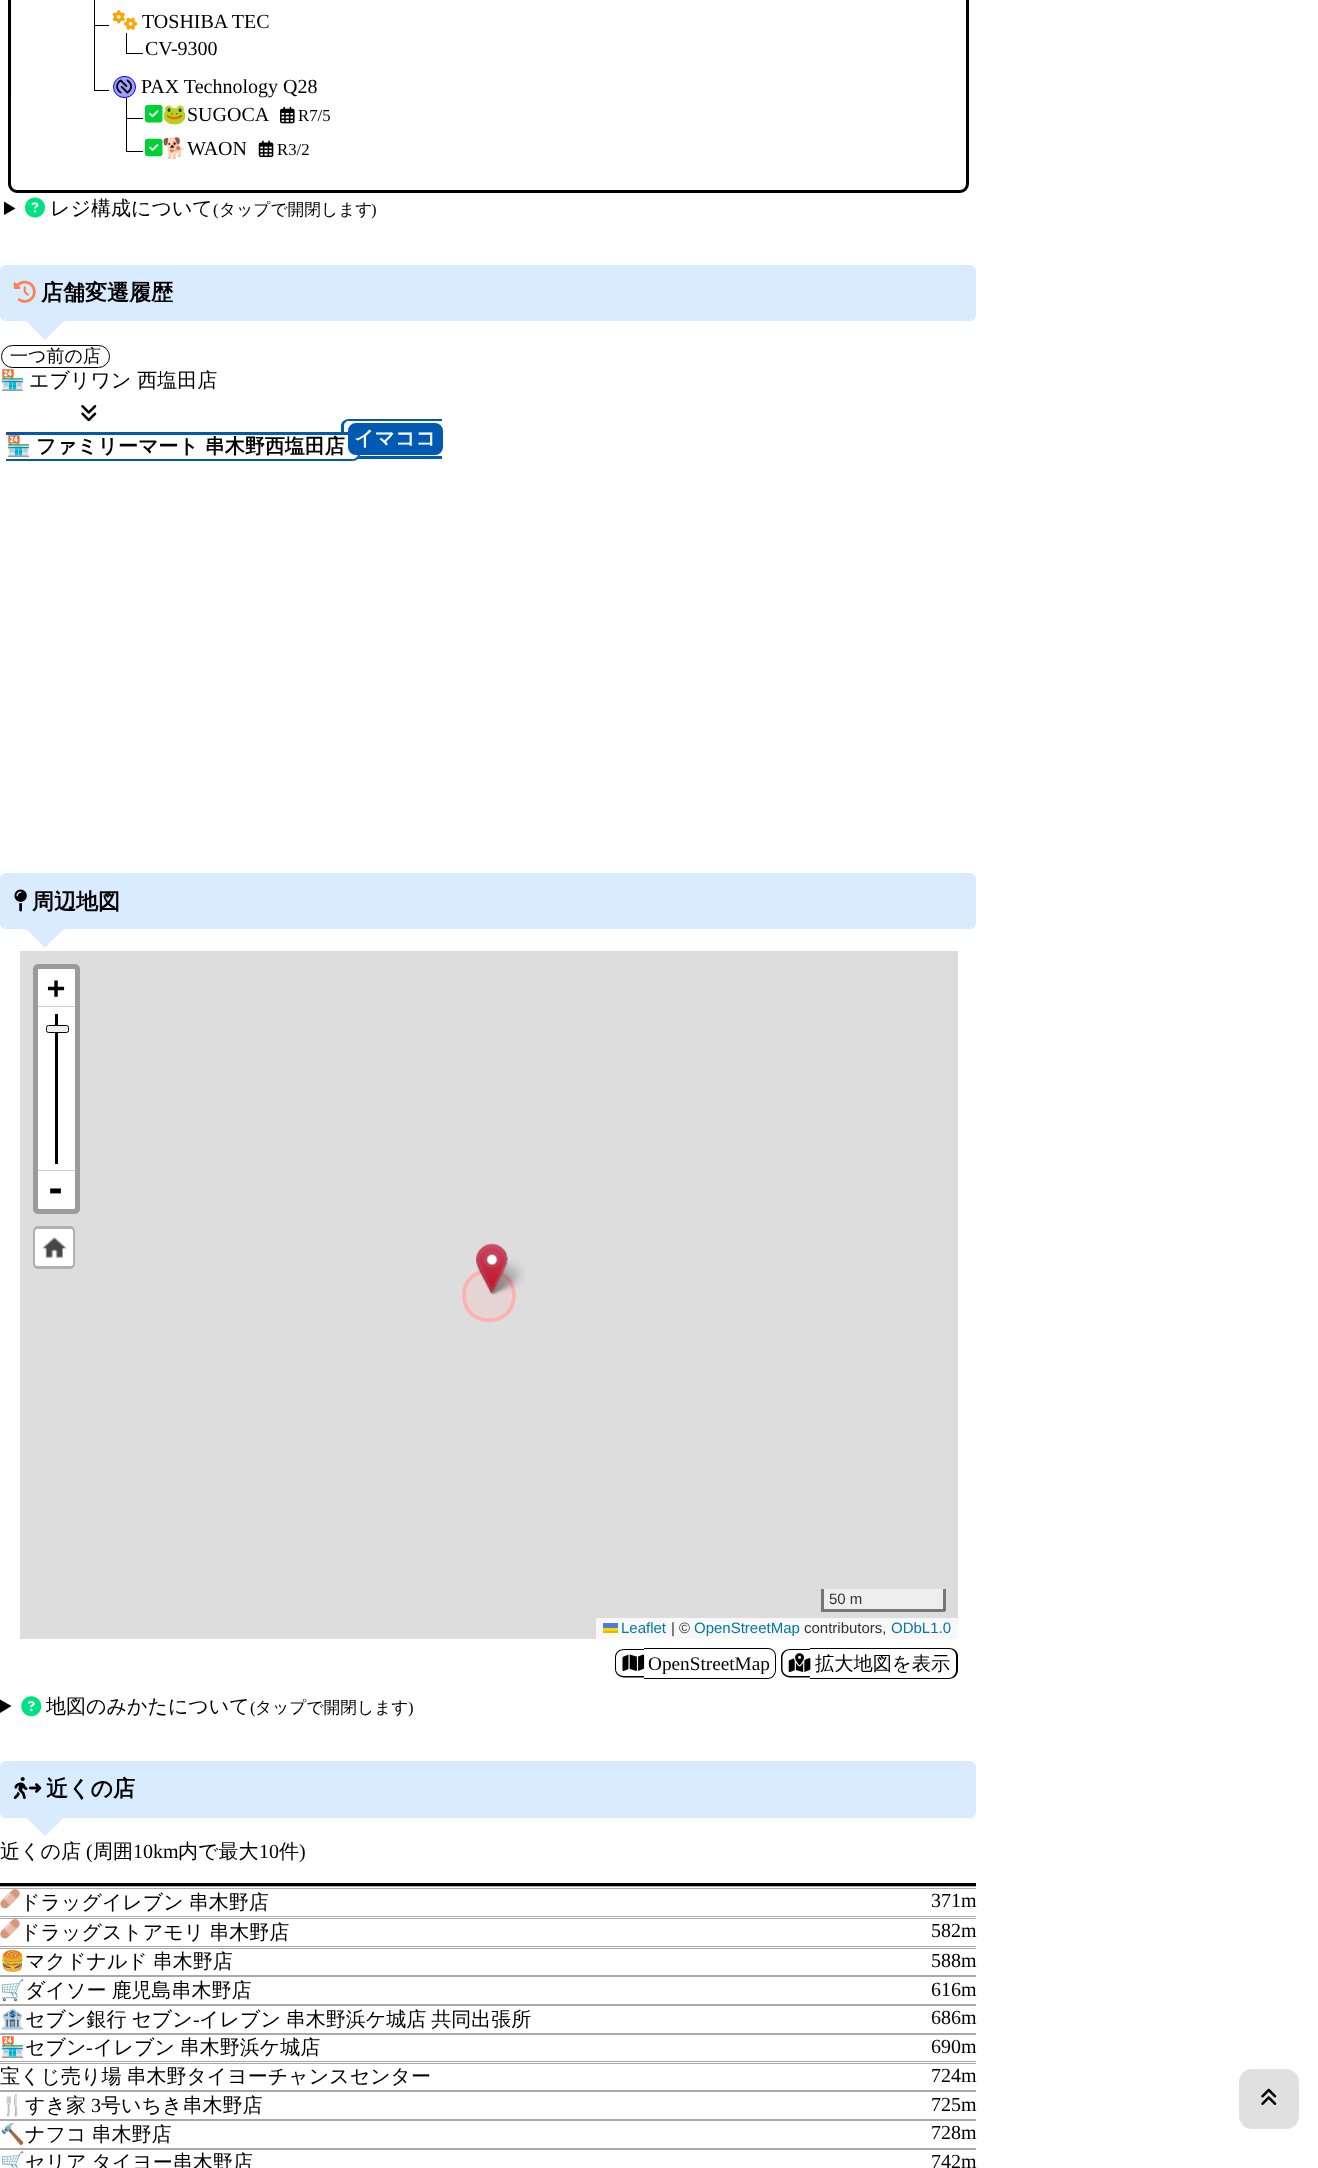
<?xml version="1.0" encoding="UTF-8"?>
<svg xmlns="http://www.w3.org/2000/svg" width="1318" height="2168">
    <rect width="100%" height="100%" fill="#FFFFFF"/>
    <rect x="9.5" y="-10.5" width="958" height="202" rx="7.5" fill="none" stroke="#000000" stroke-width="3"/>
    <rect x="94" y="0" width="1" height="90" fill="#000000"/>
    <rect x="94" y="25" width="15" height="1" fill="#000000"/>
    <image x="112" y="10" width="26" height="20" href="img_01.png"/>
    <text x="142" y="28" font-family="Liberation Serif" font-size="20" fill="#000000">TOSHIBA TEC</text>
    <rect x="126" y="33" width="1" height="20" fill="#000000"/>
    <rect x="126" y="53" width="17" height="1" fill="#000000"/>
    <text x="145" y="55" font-family="Liberation Serif" font-size="20" fill="#000000">CV-9300</text>
    <rect x="94" y="90" width="15" height="1" fill="#000000"/>
    <rect x="113.5" y="76.5" width="22" height="21" rx="10.5" fill="#A0A0FF" stroke="#0000FF"/>
    <image x="116" y="79" width="16" height="15" href="img_02.png"/>
    <text x="141" y="93" font-family="Liberation Serif" font-size="20" fill="#000000">PAX Technology Q28</text>
    <rect x="126" y="98" width="1" height="53" fill="#000000"/>
    <rect x="126" y="118" width="17" height="1" fill="#000000"/>
    <image x="145" y="105" width="18" height="18" href="img_03.png"/>
    <text x="162" y="121" font-family="Noto Color Emoji" font-size="20" fill="#000000">🐸</text>
    <text x="187" y="121" font-family="Liberation Serif" font-size="20" fill="#000000">SUGOCA</text>
    <image x="280" y="106" width="15" height="18" href="img_04.png"/>
    <text x="298" y="121" font-family="Liberation Serif" font-size="16.75" fill="#000000">R7/5</text>
    <rect x="126" y="151" width="17" height="1" fill="#000000"/>
    <image x="145" y="138" width="18" height="19" href="img_05.png"/>
    <text x="162" y="155" font-family="Noto Color Emoji" font-size="20" fill="#000000">🐕</text>
    <text x="187" y="155" font-family="Liberation Serif" font-size="20" fill="#000000">WAON</text>
    <image x="258" y="140" width="16" height="18" href="img_06.png"/>
    <text x="277" y="155" font-family="Liberation Serif" font-size="16.75" fill="#000000">R3/2</text>
    <path d="M 4 201.5 L 15.5 208.5 L 4 215 Z" fill="#000000"/>
    <image x="25" y="197" width="20" height="21" href="img_07.png"/>
    <text x="50" y="215" font-family="WenQuanYi Zen Hei" font-size="20" font-weight="500" fill="#000000">レジ構成について</text>
    <text x="213" y="215" font-family="Liberation Serif" font-size="16.75" fill="#000000">(</text>
    <text x="219" y="215" font-family="WenQuanYi Zen Hei" font-size="16.75" font-weight="500" fill="#000000">タップで開閉します</text>
    <text x="371" y="215" font-family="Liberation Serif" font-size="16.75" fill="#000000">)</text>
    <rect x="0" y="265" width="976" height="56" rx="6" fill="#D9ECFF"/>
    <image x="13" y="280" width="23" height="23" href="img_08.png"/>
    <text x="41" y="300" font-family="WenQuanYi Zen Hei" font-size="22" font-weight="700" fill="#000000">店舗変遷履歴</text>
    <path d="M 26 321 H 64 L 45 340 Z" fill="#D9ECFF"/>
    <rect x="1.5" y="345.5" width="108" height="22" rx="11" fill="none" stroke="#000000"/>
    <text x="10" y="362" font-family="WenQuanYi Zen Hei" font-size="18" font-weight="500" fill="#000000">一つ前の店</text>
    <text x="0" y="387" font-family="Noto Color Emoji" font-size="20" fill="#000000">🏪</text>
    <text x="29" y="387" font-family="WenQuanYi Zen Hei" font-size="20" font-weight="500" fill="#000000">エブリワン 西塩田店</text>
    <image x="81" y="405" width="16" height="17" href="img_09.png"/>
    <path d="M 349 419 H 442 V 459 H 349 C 345 459 341 455 341 451 V 426 C 341 422 345 419 349 419 Z M 349 421 H 442 V 456 H 349 C 346 456 344 454 344 451 V 426 C 344 423 346 421 349 421 Z" fill="#0059B3" fill-rule="evenodd"/>
    <path d="M 6 433 H 352 C 356.5 433 360 436.5 360 441 V 453 C 360 457.5 356.5 461 352 461 H 6 Z" fill="#FFFFFF"/>
    <path d="M 6 432 H 352 C 357 432 360 436 360 440 V 454 C 360 458 357 461 352 461 H 6 Z M 6 435 H 352 C 355 435 358 437 358 440 V 454 C 358 457 355 459 352 459 H 6 Z" fill="#0059B3" fill-rule="evenodd"/>
    <text x="6" y="453" font-family="Noto Color Emoji" font-size="20" font-weight="700" fill="#000000">🏪</text>
    <text x="36" y="453" font-family="WenQuanYi Zen Hei" font-size="20" font-weight="700" fill="#000000">ファミリーマート 串木野西塩田店</text>
    <rect x="349.5" y="424.5" width="92" height="29" rx="6.5" fill="#0059B3" stroke="#0059B3" stroke-width="3"/>
    <text x="354" y="445" font-family="WenQuanYi Zen Hei" font-size="20" font-weight="700" fill="#FFFFFF">イマココ</text>
    <rect x="0" y="873" width="976" height="56" rx="6" fill="#D9ECFF"/>
    <image x="14" y="889" width="13" height="23" href="img_10.png"/>
    <text x="32" y="909" font-family="WenQuanYi Zen Hei" font-size="22" font-weight="700" fill="#000000">周辺地図</text>
    <path d="M 26 929 H 64 L 45 947.5 Z" fill="#D9ECFF"/>
    <rect x="20" y="951" width="938" height="688" fill="#DDDDDD"/>
    <rect x="35.5" y="966.5" width="42" height="245" rx="2.5" fill="none" stroke="#9B9B9B" stroke-width="5"/>
    <path d="M 40.5 969 H 72.5 C 74 969 75 970 75 971.5 V 1008 H 38 V 971.5 C 38 970 39 969 40.5 969 Z" fill="#FFFFFF"/>
    <rect x="38" y="1006" width="37" height="1" fill="#CCCCCC"/>
    <text x="47" y="998" font-family="DejaVu Sans Mono" font-size="30" font-weight="700" fill="#000000">+</text>
    <rect x="38" y="1008" width="37" height="162" fill="#FFFFFF"/>
    <rect x="38" y="1170" width="37" height="1" fill="#CCCCCC"/>
    <rect x="55" y="1014" width="3" height="150" fill="#000000"/>
    <rect x="46.5" y="1025.5" width="22" height="7" rx="2" fill="#EFEFEF" stroke="#000000"/>
    <path d="M 38 1171 H 75 V 1206.5 C 75 1208 74 1209 72.5 1209 H 40.5 C 39 1209 38 1208 38 1206.5 Z" fill="#FFFFFF"/>
    <text x="45" y="1201" font-family="DejaVu Sans Mono" font-size="35" font-weight="700" fill="#000000">-</text>
    <rect x="34.5" y="1227.5" width="39" height="40" rx="3.5" fill="none" stroke="#B1B1B1" stroke-width="3"/>
    <rect x="35" y="1229" width="38" height="37" rx="2.5" fill="#FFFFFF"/>
    <image x="42" y="1237" width="25" height="22" href="img_11.png"/>
    <rect x="824" y="1589" width="119" height="20" fill="#EEEEEE"/>
    <rect x="943" y="1589" width="3" height="22" fill="#777777"/>
    <rect x="821" y="1609" width="124" height="3" fill="#777777"/>
    <rect x="821" y="1589" width="3" height="22" fill="#777777"/>
    <text x="829" y="1604" font-family="Liberation Sans" font-size="15" fill="#333333">50 m</text>
    <rect x="596" y="1618" width="362" height="21" fill="#F8F8F8"/>
    <text x="621" y="1633" font-family="Liberation Sans" font-size="15" fill="#0078A8">Leaflet</text>
    <rect x="603" y="1623" width="15" height="5" fill="#4C7BE1"/>
    <rect x="603" y="1628" width="15" height="3" fill="#FFD500"/>
    <rect x="603" y="1631" width="15" height="2" fill="#E0BC00"/>
    <text x="671" y="1633" font-family="Liberation Sans" font-size="15" fill="#333333">| ©</text>
    <text x="694" y="1633" font-family="Liberation Sans" font-size="15" fill="#0078A8">OpenStreetMap</text>
    <text x="804" y="1633" font-family="Liberation Sans" font-size="15" fill="#333333">contributors,</text>
    <text x="891" y="1633" font-family="Liberation Sans" font-size="15" fill="#0078A8">ODbL1.0</text>
    <path d="M 464 1295 C 464 1328 514 1328 514 1295 C 514 1262 464 1262 464 1295" fill="#E4D4D4" fill-rule="evenodd"/>
    <path d="M 464 1295.5 C 464 1328.5 514 1328.5 514 1295.5 C 514 1262.5 464 1262.5 464 1295.5" fill="none" stroke="#FFB0B0" stroke-width="3.8" stroke-linecap="round" stroke-linejoin="round"/>
    <image x="488" y="1259" width="37" height="36" href="img_13.png"/>
    <image x="476" y="1243" width="32" height="52" href="img_12.png"/>
    <path d="M 624 1649 H 644 V 1677.5 H 624 C 619 1677.5 615 1673.5 615 1669 V 1657.5 C 615 1652.5 619 1649 624 1649 Z M 624 1650 H 644 V 1676 H 624 C 619.5 1676 616 1673 616 1669 V 1657.5 C 616 1653.5 619.5 1650 624 1650 Z" fill="#000000" fill-rule="evenodd"/>
    <path d="M 644 1648 H 768 C 772 1648 776 1651 776 1656 V 1670 C 776 1675 772 1679 768 1679 H 644 Z M 644 1649 H 768 C 772 1649 775 1652 775 1656 V 1670 C 775 1674 772 1678 768 1678 H 644 Z" fill="#000000" fill-rule="evenodd"/>
    <image x="622" y="1654" width="23" height="17" href="img_14.png"/>
    <text x="648" y="1670" font-family="Liberation Serif" font-size="19.25" fill="#000000">OpenStreetMap</text>
    <path d="M 790 1649 H 810 V 1677.5 H 790 C 785 1677.5 781 1673.5 781 1669 V 1657.5 C 781 1652.5 785 1649 790 1649 Z M 790 1650 H 810 V 1676 H 790 C 786 1676 782.5 1673 782.5 1669 V 1657.5 C 782.5 1653.5 786 1650 790 1650 Z" fill="#000000" fill-rule="evenodd"/>
    <path d="M 810 1648 H 949 C 954 1648 958 1651 958 1656 V 1670 C 958 1675 954 1679 949 1679 H 810 Z M 810 1649 H 949 C 953 1649 956 1652 956 1656 V 1670 C 956 1674 953 1678 949 1678 H 810 Z" fill="#000000" fill-rule="evenodd"/>
    <image x="788" y="1653" width="23" height="20" href="img_15.png"/>
    <text x="815" y="1670" font-family="WenQuanYi Zen Hei" font-size="19.25" font-weight="500" fill="#000000">拡大地図を表示</text>
    <path d="M 0 1699.5 L 11.5 1706 L 0 1713 Z" fill="#000000"/>
    <image x="21" y="1696" width="21" height="21" href="img_16.png"/>
    <text x="46" y="1713" font-family="WenQuanYi Zen Hei" font-size="20" font-weight="500" fill="#000000">地図のみかたについて</text>
    <text x="250" y="1713" font-family="Liberation Serif" font-size="16.75" fill="#000000">(</text>
    <text x="255" y="1713" font-family="WenQuanYi Zen Hei" font-size="16.75" font-weight="500" fill="#000000">タップで開閉します</text>
    <text x="408" y="1713" font-family="Liberation Serif" font-size="16.75" fill="#000000">)</text>
    <rect x="0" y="1761" width="976" height="57" rx="6" fill="#D9ECFF"/>
    <image x="13" y="1777" width="29" height="22" href="img_17.png"/>
    <text x="46" y="1796" font-family="WenQuanYi Zen Hei" font-size="22" font-weight="700" fill="#000000">近くの店</text>
    <path d="M 26 1817.5 H 64 L 45 1836 Z" fill="#D9ECFF"/>
    <text x="0" y="1858" font-family="WenQuanYi Zen Hei" font-size="20" font-weight="500" fill="#000000">近くの店</text>
    <text x="86" y="1858" font-family="Liberation Serif" font-size="20" fill="#000000">(</text>
    <text x="93" y="1858" font-family="WenQuanYi Zen Hei" font-size="20" font-weight="500" fill="#000000">周囲</text>
    <text x="133" y="1858" font-family="Liberation Serif" font-size="20" fill="#000000">10km</text>
    <text x="178" y="1858" font-family="WenQuanYi Zen Hei" font-size="20" font-weight="500" fill="#000000">内で最大</text>
    <text x="259" y="1858" font-family="Liberation Serif" font-size="20" fill="#000000">10</text>
    <text x="279" y="1858" font-family="WenQuanYi Zen Hei" font-size="20" font-weight="500" fill="#000000">件</text>
    <text x="299" y="1858" font-family="Liberation Serif" font-size="20" fill="#000000">)</text>
    <rect x="0" y="1883" width="976" height="3" fill="#000000"/>
    <rect x="0" y="1886" width="976" height="1" fill="#A9A9A9"/>
    <image x="0" y="1889" width="20" height="20" href="img_18.png"/>
    <text x="20" y="1909" word-spacing="-1" font-family="WenQuanYi Zen Hei" font-size="20" font-weight="500" fill="#000000">ドラッグイレブン 串木野店</text>
    <rect x="0" y="1888" width="976" height="1" fill="#A9A9A9"/>
    <text x="931" y="1907" font-family="Liberation Serif" font-size="20" fill="#000000">371m</text>
    <rect x="0" y="1916" width="976" height="1" fill="#A9A9A9"/>
    <image x="0" y="1919" width="20" height="20" href="img_18.png"/>
    <text x="20" y="1939" word-spacing="-1" font-family="WenQuanYi Zen Hei" font-size="20" font-weight="500" fill="#000000">ドラッグストアモリ 串木野店</text>
    <rect x="0" y="1918" width="976" height="1" fill="#A9A9A9"/>
    <text x="931" y="1937" font-family="Liberation Serif" font-size="20" fill="#000000">582m</text>
    <rect x="0" y="1946" width="976" height="1" fill="#A9A9A9"/>
    <text x="0" y="1968" font-family="Noto Color Emoji" font-size="20" fill="#000000">🍔</text>
    <text x="25" y="1968" word-spacing="-1" font-family="WenQuanYi Zen Hei" font-size="20" font-weight="500" fill="#000000">マクドナルド 串木野店</text>
    <rect x="0" y="1948" width="976" height="1" fill="#A9A9A9"/>
    <text x="931" y="1967" font-family="Liberation Serif" font-size="20" fill="#000000">588m</text>
    <rect x="0" y="1975" width="976" height="2" fill="#A9A9A9"/>
    <text x="0" y="1997" font-family="Noto Color Emoji" font-size="20" fill="#000000">🛒</text>
    <text x="25" y="1997" word-spacing="-1" font-family="WenQuanYi Zen Hei" font-size="20" font-weight="500" fill="#000000">ダイソー 鹿児島串木野店</text>
    <text x="931" y="1996" font-family="Liberation Serif" font-size="20" fill="#000000">616m</text>
    <rect x="0" y="2004" width="976" height="2" fill="#A9A9A9"/>
    <text x="0" y="2026" font-family="Noto Color Emoji" font-size="20" fill="#000000">🏦</text>
    <text x="25" y="2026" word-spacing="-1" font-family="WenQuanYi Zen Hei" font-size="20" font-weight="500" fill="#000000">セブン銀行 セブン</text>
    <text x="193" y="2026" font-family="Liberation Serif" font-size="20" fill="#000000">‐</text>
    <text x="199" y="2026" word-spacing="-1" font-family="WenQuanYi Zen Hei" font-size="20" font-weight="500" fill="#000000">イレブン 串木野浜ケ城店 共同出張所</text>
    <text x="931" y="2024" font-family="Liberation Serif" font-size="20" fill="#000000">686m</text>
    <rect x="0" y="2033" width="976" height="2" fill="#A9A9A9"/>
    <text x="0" y="2054" font-family="Noto Color Emoji" font-size="20" fill="#000000">🏪</text>
    <text x="25" y="2054" font-family="WenQuanYi Zen Hei" font-size="20" font-weight="500" fill="#000000">セブン</text>
    <text x="86" y="2054" font-family="Liberation Serif" font-size="20" fill="#000000">‐</text>
    <text x="93" y="2054" word-spacing="-1" font-family="WenQuanYi Zen Hei" font-size="20" font-weight="500" fill="#000000">イレブン 串木野浜ケ城店</text>
    <text x="931" y="2053" font-family="Liberation Serif" font-size="20" fill="#000000">690m</text>
    <rect x="0" y="2061" width="976" height="1" fill="#A9A9A9"/>
    <text x="0" y="2083" word-spacing="-1" font-family="WenQuanYi Zen Hei" font-size="20" font-weight="500" fill="#000000">宝くじ売り場 串木野タイヨーチャンスセンター</text>
    <rect x="0" y="2063" width="976" height="1" fill="#A9A9A9"/>
    <text x="931" y="2082" font-family="Liberation Serif" font-size="20" fill="#000000">724m</text>
    <rect x="0" y="2090" width="976" height="2" fill="#A9A9A9"/>
    <text x="0" y="2112" font-family="Noto Color Emoji" font-size="20" fill="#000000">🍴</text>
    <text x="25" y="2112" font-family="WenQuanYi Zen Hei" font-size="20" font-weight="500" fill="#000000">すき家</text>
    <text x="91" y="2112" font-family="Liberation Serif" font-size="20" fill="#000000">3</text>
    <text x="101" y="2112" font-family="WenQuanYi Zen Hei" font-size="20" font-weight="500" fill="#000000">号いちき串木野店</text>
    <text x="931" y="2111" font-family="Liberation Serif" font-size="20" fill="#000000">725m</text>
    <rect x="0" y="2119" width="976" height="2" fill="#A9A9A9"/>
    <text x="0" y="2141" font-family="Noto Color Emoji" font-size="20" fill="#000000">🔨</text>
    <text x="25" y="2141" word-spacing="-1" font-family="WenQuanYi Zen Hei" font-size="20" font-weight="500" fill="#000000">ナフコ 串木野店</text>
    <text x="931" y="2139" font-family="Liberation Serif" font-size="20" fill="#000000">728m</text>
    <rect x="0" y="2148" width="976" height="2" fill="#A9A9A9"/>
    <text x="0" y="2169" font-family="Noto Color Emoji" font-size="20" fill="#000000">🛒</text>
    <text x="25" y="2169" word-spacing="-1" font-family="WenQuanYi Zen Hei" font-size="20" font-weight="500" fill="#000000">セリア タイヨー串木野店</text>
    <text x="931" y="2168" font-family="Liberation Serif" font-size="20" fill="#000000">742m</text>
    <rect x="1239" y="2069" width="60" height="60" rx="13" fill="#E0E0E0"/>
    <image x="1261" y="2088" width="16" height="17" href="img_19.png"/>
</svg>
